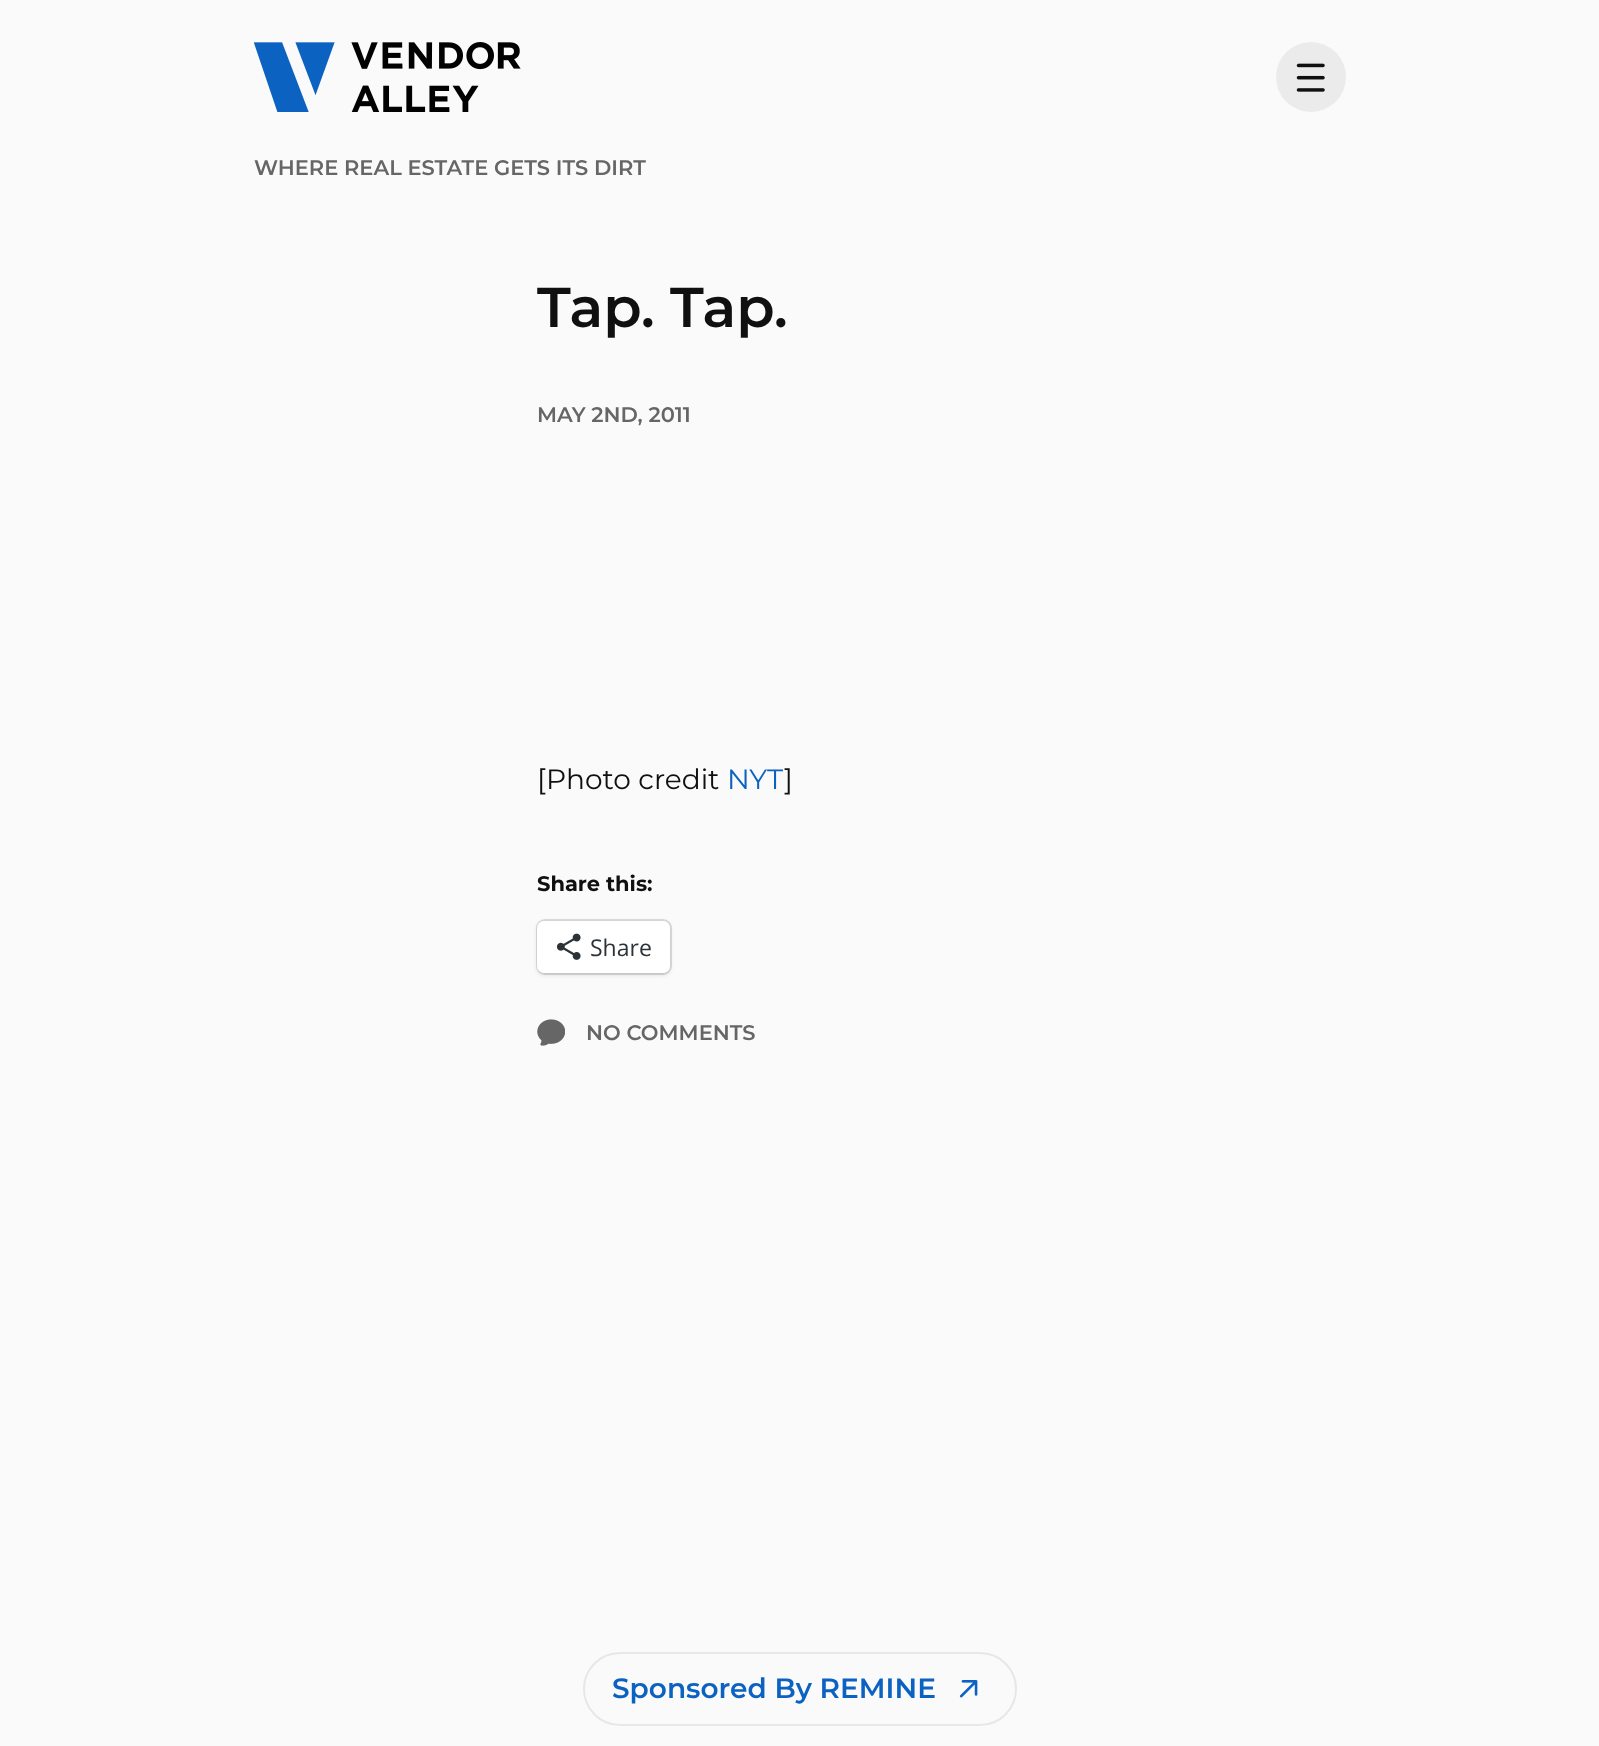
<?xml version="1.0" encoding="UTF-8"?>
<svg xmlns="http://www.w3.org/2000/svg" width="1599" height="1746">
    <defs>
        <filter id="blur1" x="-50%" y="-200%" width="200%" height="500%"><feGaussianBlur stdDeviation="2"/></filter>
    </defs>
    <rect width="100%" height="100%" fill="#FAFAFA"/>
    <image x="254" y="42" width="267" height="70" href="img_01.png"/>
    <circle cx="1311" cy="77" r="35" fill="#EBEBEB"/>
    <image x="1296" y="63" width="29" height="29" href="img_02.png"/>
    <text x="254" y="175" font-family="Montserrat" font-size="21" font-weight="600" fill="#666666">WHERE REAL ESTATE GETS ITS DIRT</text>
    <text x="537" y="327" font-family="Montserrat" font-size="56" font-weight="600" fill="#101010">Tap. Tap.</text>
    <text x="537" y="422" font-family="Montserrat" font-size="21" font-weight="600" fill="#666666">MAY 2ND, 2011</text>
    <text x="537" y="789" font-family="Montserrat" font-size="28" fill="#101010">[Photo credit</text>
    <text x="727" y="789" font-family="Montserrat" font-size="28" fill="#0C62C1">NYT</text>
    <text x="784" y="789" font-family="Montserrat" font-size="28" fill="#101010">]</text>
    <text x="537" y="891" font-family="Montserrat" font-size="21" font-weight="700" fill="#101010">Share this:</text>
    <rect x="537" y="920" width="134" height="54" rx="8" fill="none" stroke="#DCDCDC" stroke-width="2"/>
    <rect x="537" y="922" width="133" height="53" rx="7" fill="#000000" fill-opacity="0.12" filter="url(#blur1)"/>
    <rect x="537" y="921" width="133" height="52" rx="7" fill="#FFFFFF"/>
    <image x="556" y="933" width="25" height="27" href="img_03.png"/>
    <text x="590" y="956" font-family="Open Sans" font-size="23" fill="#2C3338">Share</text>
    <image x="537" y="1019" width="28" height="27" href="img_04.png"/>
    <text x="586" y="1040" font-family="Montserrat" font-size="21" font-weight="600" fill="#666666">NO COMMENTS</text>
    <rect x="584" y="1653" width="432" height="72" rx="36" fill="none" stroke="#E5E7EB" stroke-width="2"/>
    <text x="612" y="1698" font-family="Montserrat" font-size="28" font-weight="600" fill="#0C62C1">Sponsored By REMINE</text>
    <image x="959" y="1680" width="19" height="18" href="img_05.png"/>
</svg>
